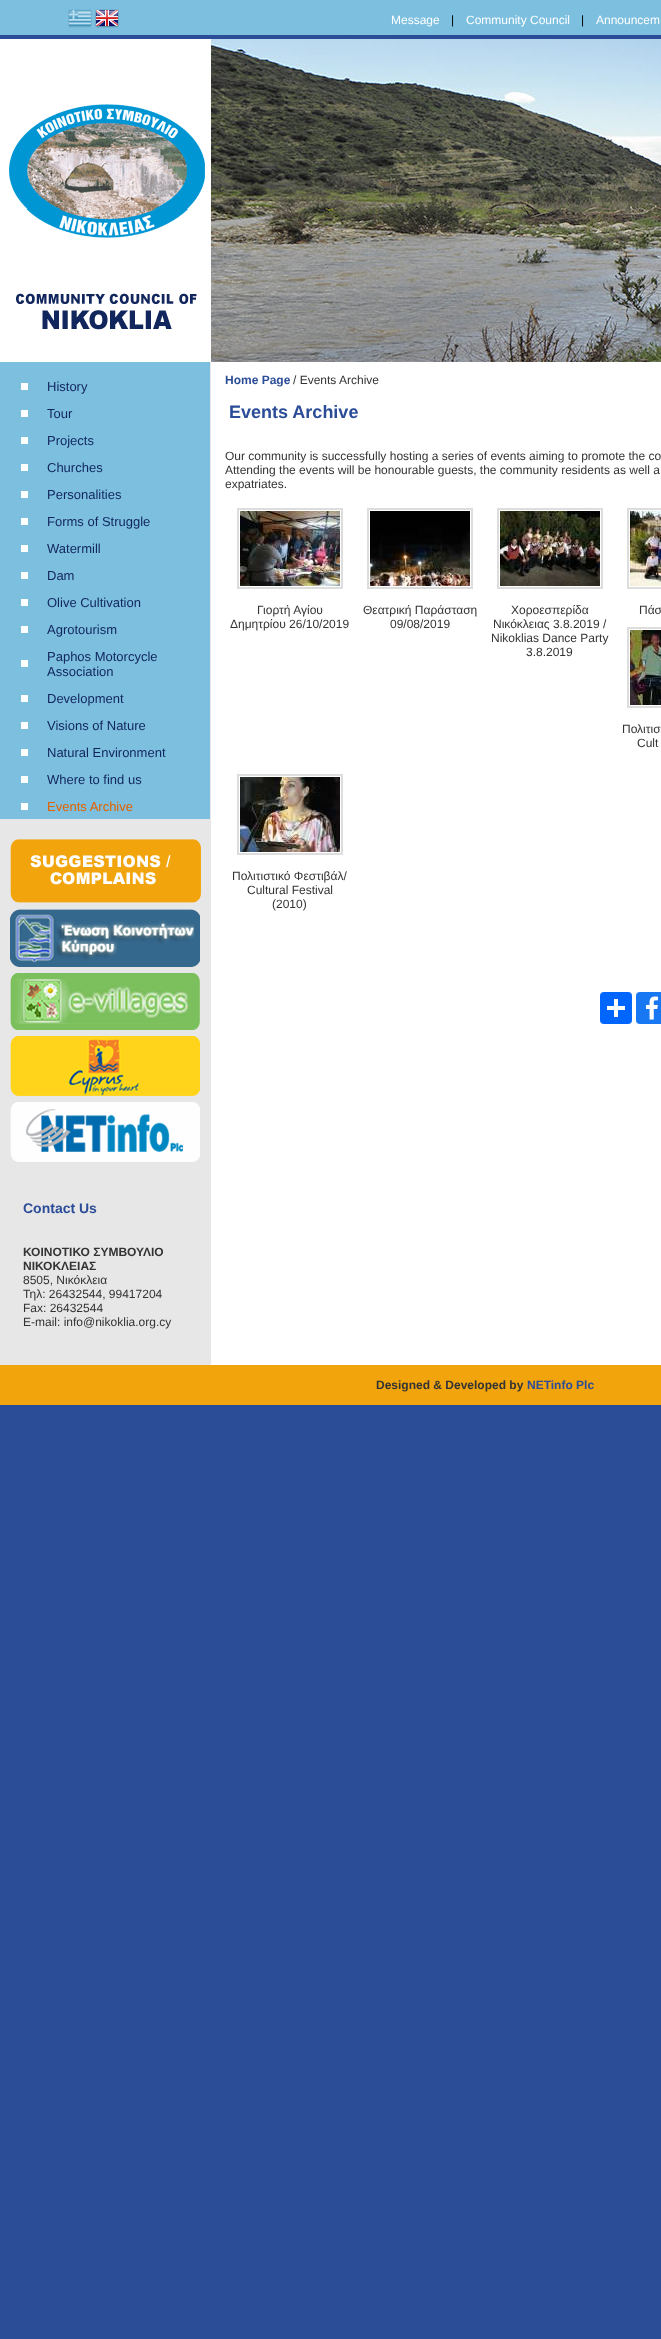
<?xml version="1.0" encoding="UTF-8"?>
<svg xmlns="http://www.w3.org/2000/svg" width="661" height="2339">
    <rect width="100%" height="100%" fill="#2B4C97"/>
    <rect x="0" y="0" width="661" height="35" fill="#7CBFDF"/>
    <image x="68" y="9" width="24" height="19" href="img_01.png"/>
    <image x="95" y="9" width="24" height="19" href="img_02.png"/>
    <text x="391" y="24" font-family="Liberation Sans" font-size="12" fill="#FFFFFF">Message</text>
    <text x="451" y="24" font-family="Liberation Sans" font-size="12" fill="#000000">|</text>
    <text x="466" y="24" font-family="Liberation Sans" font-size="12" fill="#FFFFFF">Community Council</text>
    <text x="581" y="24" font-family="Liberation Sans" font-size="12" fill="#000000">|</text>
    <text x="596" y="24" font-family="Liberation Sans" font-size="12" fill="#FFFFFF">Announcem</text>
    <image x="0" y="39" width="211" height="323" href="img_03.png"/>
    <image x="211" y="39" width="450" height="323" href="img_04.png"/>
    <rect x="0" y="362" width="211" height="1003" fill="#E8E7E7"/>
    <rect x="0" y="362" width="210" height="457" fill="#7CBFDF"/>
    <rect x="21" y="383" width="7" height="7" fill="#FEFFFF"/>
    <text x="47" y="391" font-family="Liberation Sans" font-size="13" fill="#12265E">History</text>
    <rect x="21" y="410" width="7" height="7" fill="#FEFFFF"/>
    <text x="47" y="418" font-family="Liberation Sans" font-size="13" fill="#12265E">Tour</text>
    <rect x="21" y="437" width="7" height="7" fill="#FEFFFF"/>
    <text x="47" y="445" font-family="Liberation Sans" font-size="13" fill="#12265E">Projects</text>
    <rect x="21" y="464" width="7" height="7" fill="#FEFFFF"/>
    <text x="47" y="472" font-family="Liberation Sans" font-size="13" fill="#12265E">Churches</text>
    <rect x="21" y="491" width="7" height="7" fill="#FEFFFF"/>
    <text x="47" y="499" font-family="Liberation Sans" font-size="13" fill="#12265E">Personalities</text>
    <rect x="21" y="518" width="7" height="7" fill="#FEFFFF"/>
    <text x="47" y="526" font-family="Liberation Sans" font-size="13" fill="#12265E">Forms of Struggle</text>
    <rect x="21" y="545" width="7" height="7" fill="#FEFFFF"/>
    <text x="47" y="553" font-family="Liberation Sans" font-size="13" fill="#12265E">Watermill</text>
    <rect x="21" y="572" width="7" height="7" fill="#FEFFFF"/>
    <text x="47" y="580" font-family="Liberation Sans" font-size="13" fill="#12265E">Dam</text>
    <rect x="21" y="599" width="7" height="7" fill="#FEFFFF"/>
    <text x="47" y="607" font-family="Liberation Sans" font-size="13" fill="#12265E">Olive Cultivation</text>
    <rect x="21" y="626" width="7" height="7" fill="#FEFFFF"/>
    <text x="47" y="634" font-family="Liberation Sans" font-size="13" fill="#12265E">Agrotourism</text>
    <rect x="21" y="660" width="7" height="7" fill="#FEFFFF"/>
    <text font-family="Liberation Sans" font-size="13" fill="#12265E">
        <tspan x="47" y="661">Paphos Motorcycle</tspan>
        <tspan x="47" y="676">Association</tspan>
    </text>
    <rect x="21" y="695" width="7" height="7" fill="#FEFFFF"/>
    <text x="47" y="703" font-family="Liberation Sans" font-size="13" fill="#12265E">Development</text>
    <rect x="21" y="722" width="7" height="7" fill="#FEFFFF"/>
    <text x="47" y="730" font-family="Liberation Sans" font-size="13" fill="#12265E">Visions of Nature</text>
    <rect x="21" y="749" width="7" height="7" fill="#FEFFFF"/>
    <text x="47" y="757" font-family="Liberation Sans" font-size="13" fill="#12265E">Natural Environment</text>
    <rect x="21" y="776" width="7" height="7" fill="#FEFFFF"/>
    <text x="47" y="784" font-family="Liberation Sans" font-size="13" fill="#12265E">Where to find us</text>
    <rect x="21" y="803" width="7" height="7" fill="#FEFFFF"/>
    <text x="47" y="811" font-family="Liberation Sans" font-size="13" fill="#E26300">Events Archive</text>
    <image x="10" y="839" width="191" height="64" href="img_05.png"/>
    <image x="10" y="909" width="190" height="58" href="img_06.png"/>
    <image x="10" y="973" width="190" height="57" href="img_07.png"/>
    <image x="10" y="1036" width="190" height="60" href="img_08.png"/>
    <image x="10" y="1102" width="190" height="60" href="img_09.png"/>
    <text x="23" y="1213" font-family="Liberation Sans" font-size="14" font-weight="700" fill="#2B4C97">Contact Us</text>
    <text font-family="Liberation Sans" font-size="12" font-weight="700" fill="#333333">
        <tspan x="23" y="1256">ΚΟΙΝΟΤΙΚΟ ΣΥΜΒΟΥΛΙΟ</tspan>
        <tspan x="23" y="1270">ΝΙΚΟΚΛΕΙΑΣ</tspan>
    </text>
    <text font-family="Liberation Sans" font-size="12" fill="#333333">
        <tspan x="23" y="1284">8505, Νικόκλεια</tspan>
        <tspan x="23" y="1298">Τηλ: 26432544, 99417204</tspan>
        <tspan x="23" y="1312">Fax: 26432544</tspan>
        <tspan x="23" y="1326">E-mail: info@nikoklia.org.cy</tspan>
    </text>
    <rect x="211" y="362" width="450" height="1003" fill="#FFFFFF"/>
    <text x="225" y="384" font-family="Liberation Sans" font-size="12" font-weight="700" fill="#2B4C97">Home Page</text>
    <text x="293" y="384" font-family="Liberation Sans" font-size="12" fill="#333333">/ Events Archive</text>
    <text x="229" y="418" font-family="Liberation Sans" font-size="18" font-weight="700" fill="#2B4C97">Events Archive</text>
    <text font-family="Liberation Sans" font-size="12" fill="#333333">
        <tspan x="225" y="460">Our community is successfully hosting a series of events aiming to promote the co</tspan>
        <tspan x="225" y="474">Attending the events will be honourable guests, the community residents as well a</tspan>
        <tspan x="225" y="488">expatriates.</tspan>
    </text>
    <rect x="238" y="509" width="104" height="79" fill="none" stroke="#DDDDDD" stroke-width="2"/>
    <image x="240" y="511" width="100" height="75" href="img_10.png"/>
    <text x="257" y="614" font-family="Liberation Sans" font-size="12" fill="#333333">Γιορτή Αγίου</text>
    <text x="230" y="628" font-family="Liberation Sans" font-size="12" fill="#333333">Δημητρίου 26/10/2019</text>
    <rect x="368" y="509" width="104" height="79" fill="none" stroke="#DDDDDD" stroke-width="2"/>
    <image x="370" y="511" width="100" height="75" href="img_11.png"/>
    <text x="363" y="614" font-family="Liberation Sans" font-size="12" fill="#333333">Θεατρική Παράσταση</text>
    <text x="390" y="628" font-family="Liberation Sans" font-size="12" fill="#333333">09/08/2019</text>
    <rect x="498" y="509" width="104" height="79" fill="none" stroke="#DDDDDD" stroke-width="2"/>
    <image x="500" y="511" width="100" height="75" href="img_12.png"/>
    <text x="511" y="614" font-family="Liberation Sans" font-size="12" fill="#333333">Χοροεσπερίδα</text>
    <text x="493" y="628" font-family="Liberation Sans" font-size="12" fill="#333333">Νικόκλειας 3.8.2019 /</text>
    <text x="491" y="642" font-family="Liberation Sans" font-size="12" fill="#333333">Nikoklias Dance Party</text>
    <text x="526" y="656" font-family="Liberation Sans" font-size="12" fill="#333333">3.8.2019</text>
    <rect x="628" y="509" width="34" height="79" fill="none" stroke="#DDDDDD" stroke-width="2"/>
    <image x="630" y="511" width="31" height="75" href="img_13.png"/>
    <text x="639" y="614" font-family="Liberation Sans" font-size="12" fill="#333333">Πάσ</text>
    <rect x="628" y="628" width="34" height="79" fill="none" stroke="#DDDDDD" stroke-width="2"/>
    <image x="630" y="630" width="31" height="75" href="img_14.png"/>
    <text x="622" y="733" font-family="Liberation Sans" font-size="12" fill="#333333">Πολιτισ</text>
    <text x="637" y="747" font-family="Liberation Sans" font-size="12" fill="#333333">Cult</text>
    <rect x="238" y="775" width="104" height="79" fill="none" stroke="#DDDDDD" stroke-width="2"/>
    <image x="240" y="777" width="100" height="75" href="img_15.png"/>
    <text x="232" y="880" font-family="Liberation Sans" font-size="12" fill="#333333">Πολιτιστικό Φεστιβάλ/</text>
    <text x="247" y="894" font-family="Liberation Sans" font-size="12" fill="#333333">Cultural Festival</text>
    <text x="272" y="908" font-family="Liberation Sans" font-size="12" fill="#333333">(2010)</text>
    <rect x="600" y="992" width="32" height="32" rx="4" fill="#0166FF"/>
    <rect x="614" y="999" width="4" height="18" fill="#FFFFFF"/>
    <rect x="607" y="1006" width="18" height="4" fill="#FFFFFF"/>
    <rect x="636" y="992" width="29" height="32" rx="4" fill="#1877F2"/>
    <image x="646" y="996" width="12" height="24" href="img_16.png"/>
    <rect x="0" y="1365" width="661" height="40" fill="#F2A40C"/>
    <text x="376" y="1389" font-family="Liberation Sans" font-size="12" font-weight="700" fill="#333333">Designed &amp; Developed by</text>
    <text x="527" y="1389" font-family="Liberation Sans" font-size="12" font-weight="700" fill="#2B4C97">NETinfo Plc</text>
</svg>
